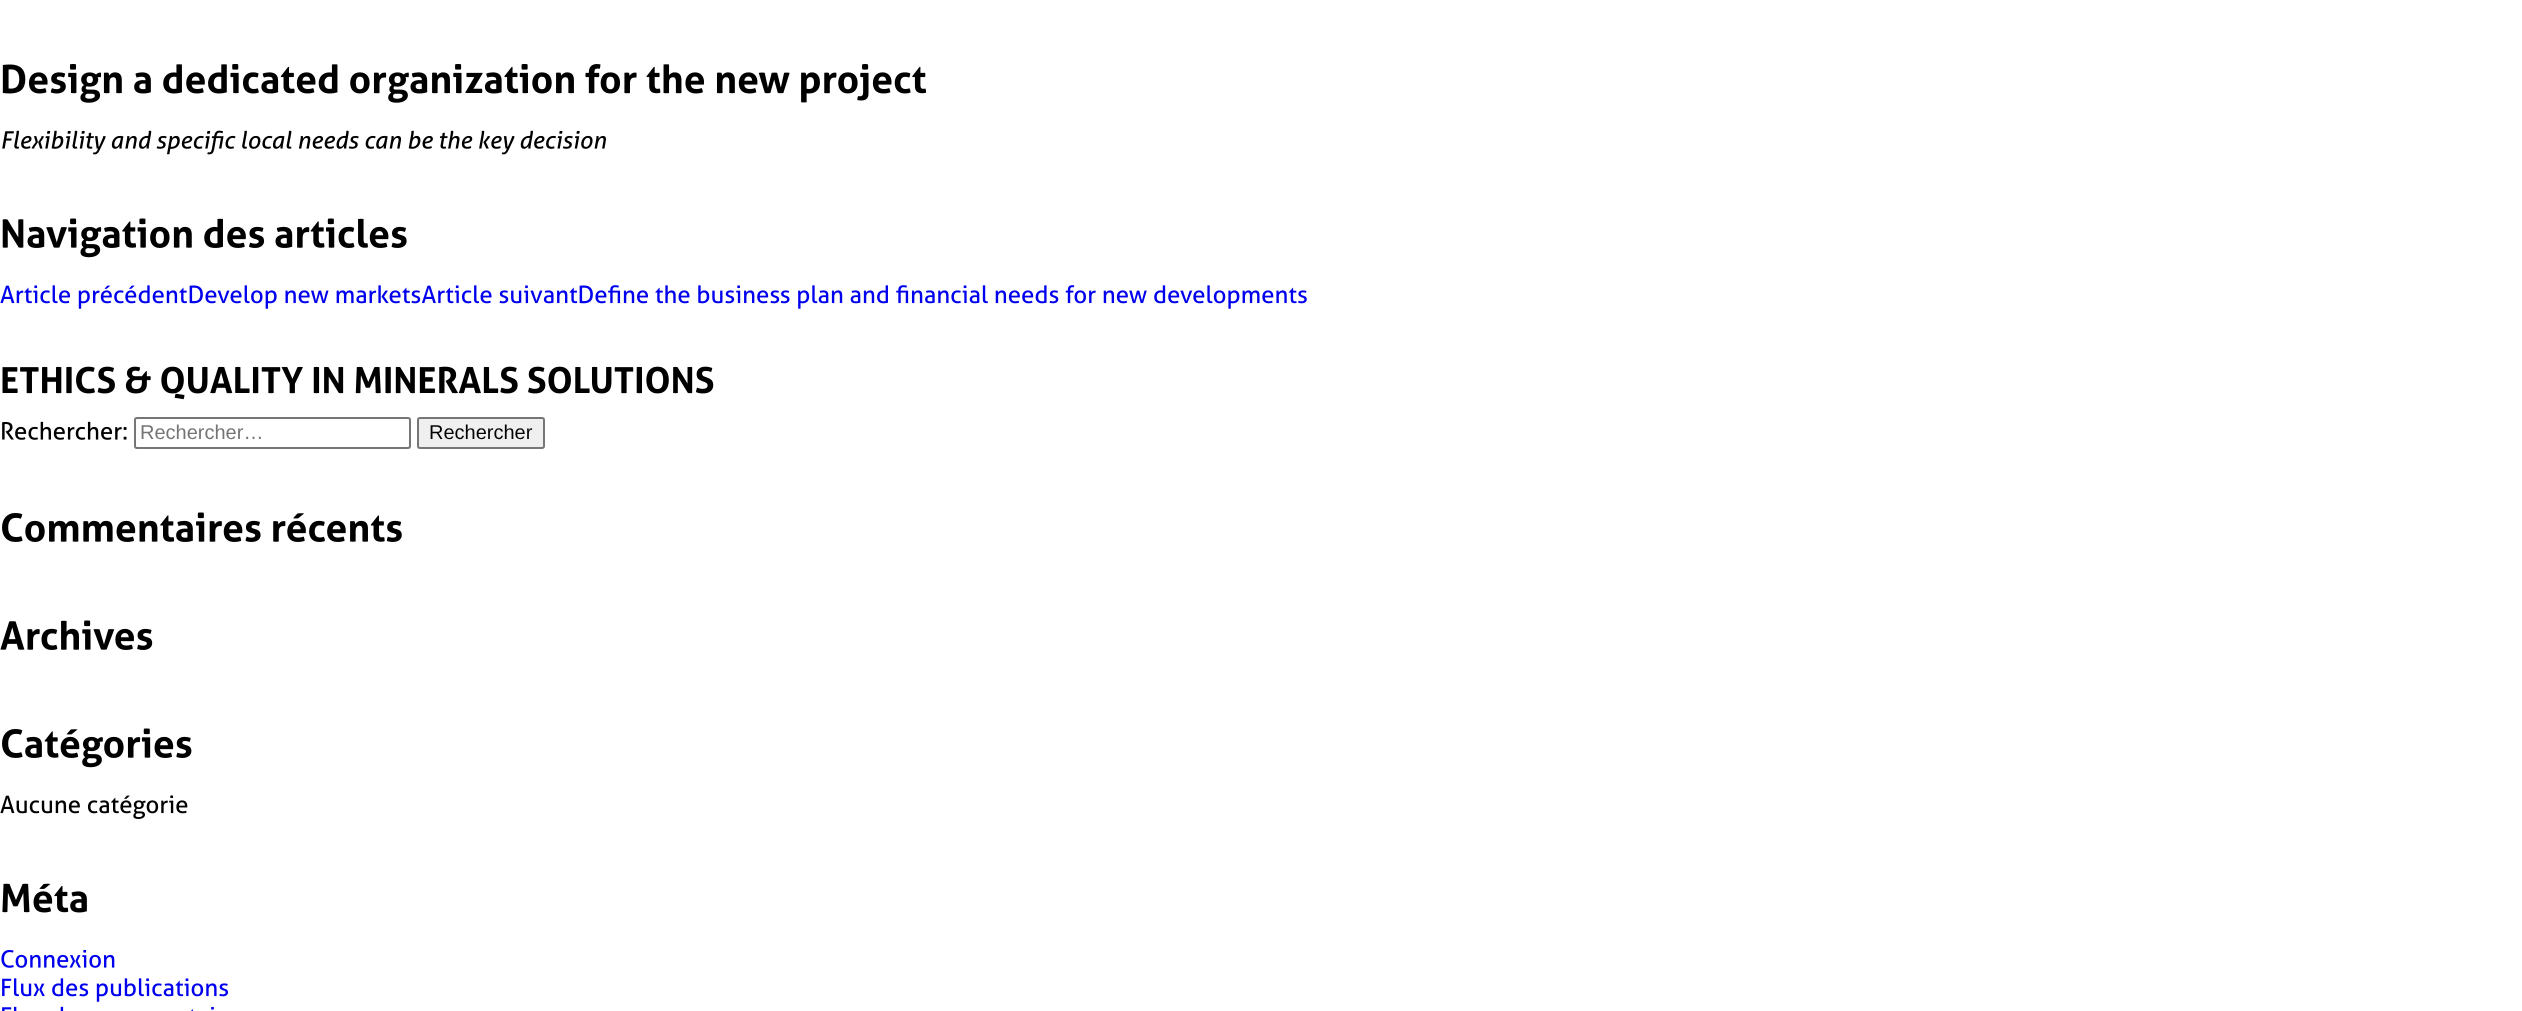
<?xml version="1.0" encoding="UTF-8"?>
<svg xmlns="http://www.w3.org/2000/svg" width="2522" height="1011">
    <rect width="100%" height="100%" fill="#FFFFFF"/>
    <image x="2" y="64" width="924" height="39" href="img_01.png"/>
    <image x="2" y="130" width="604" height="25" href="img_02.png"/>
    <image x="2" y="218" width="405" height="40" href="img_03.png"/>
    <image x="0" y="285" width="187" height="24" href="img_04.png"/>
    <image x="189" y="285" width="232" height="24" href="img_05.png"/>
    <image x="422" y="285" width="156" height="19" href="img_06.png"/>
    <image x="579" y="285" width="728" height="24" href="img_07.png"/>
    <image x="2" y="366" width="712" height="34" href="img_08.png"/>
    <image x="2" y="421" width="125" height="19" href="img_09.png"/>
    <rect x="135" y="418" width="275" height="30" rx="2" fill="none" stroke="#767676" stroke-width="2"/>
    <text x="140" y="439" font-family="Liberation Sans" font-size="20" fill="#757575">Rechercher…</text>
    <rect x="418" y="418" width="126" height="30" rx="2" fill="#EFEFEF" stroke="#767676" stroke-width="2"/>
    <text x="429" y="439" font-family="Liberation Sans" font-size="20" fill="#000000">Rechercher</text>
    <image x="2" y="512" width="400" height="30" href="img_10.png"/>
    <image x="0" y="620" width="153" height="30" href="img_11.png"/>
    <image x="2" y="728" width="190" height="40" href="img_12.png"/>
    <image x="0" y="795" width="188" height="24" href="img_13.png"/>
    <image x="2" y="883" width="85" height="30" href="img_14.png"/>
    <image x="1" y="949" width="114" height="19" href="img_15.png"/>
    <image x="2" y="978" width="226" height="24" href="img_16.png"/>
    <image x="2" y="1006" width="212" height="5" href="img_17.png"/>
</svg>
